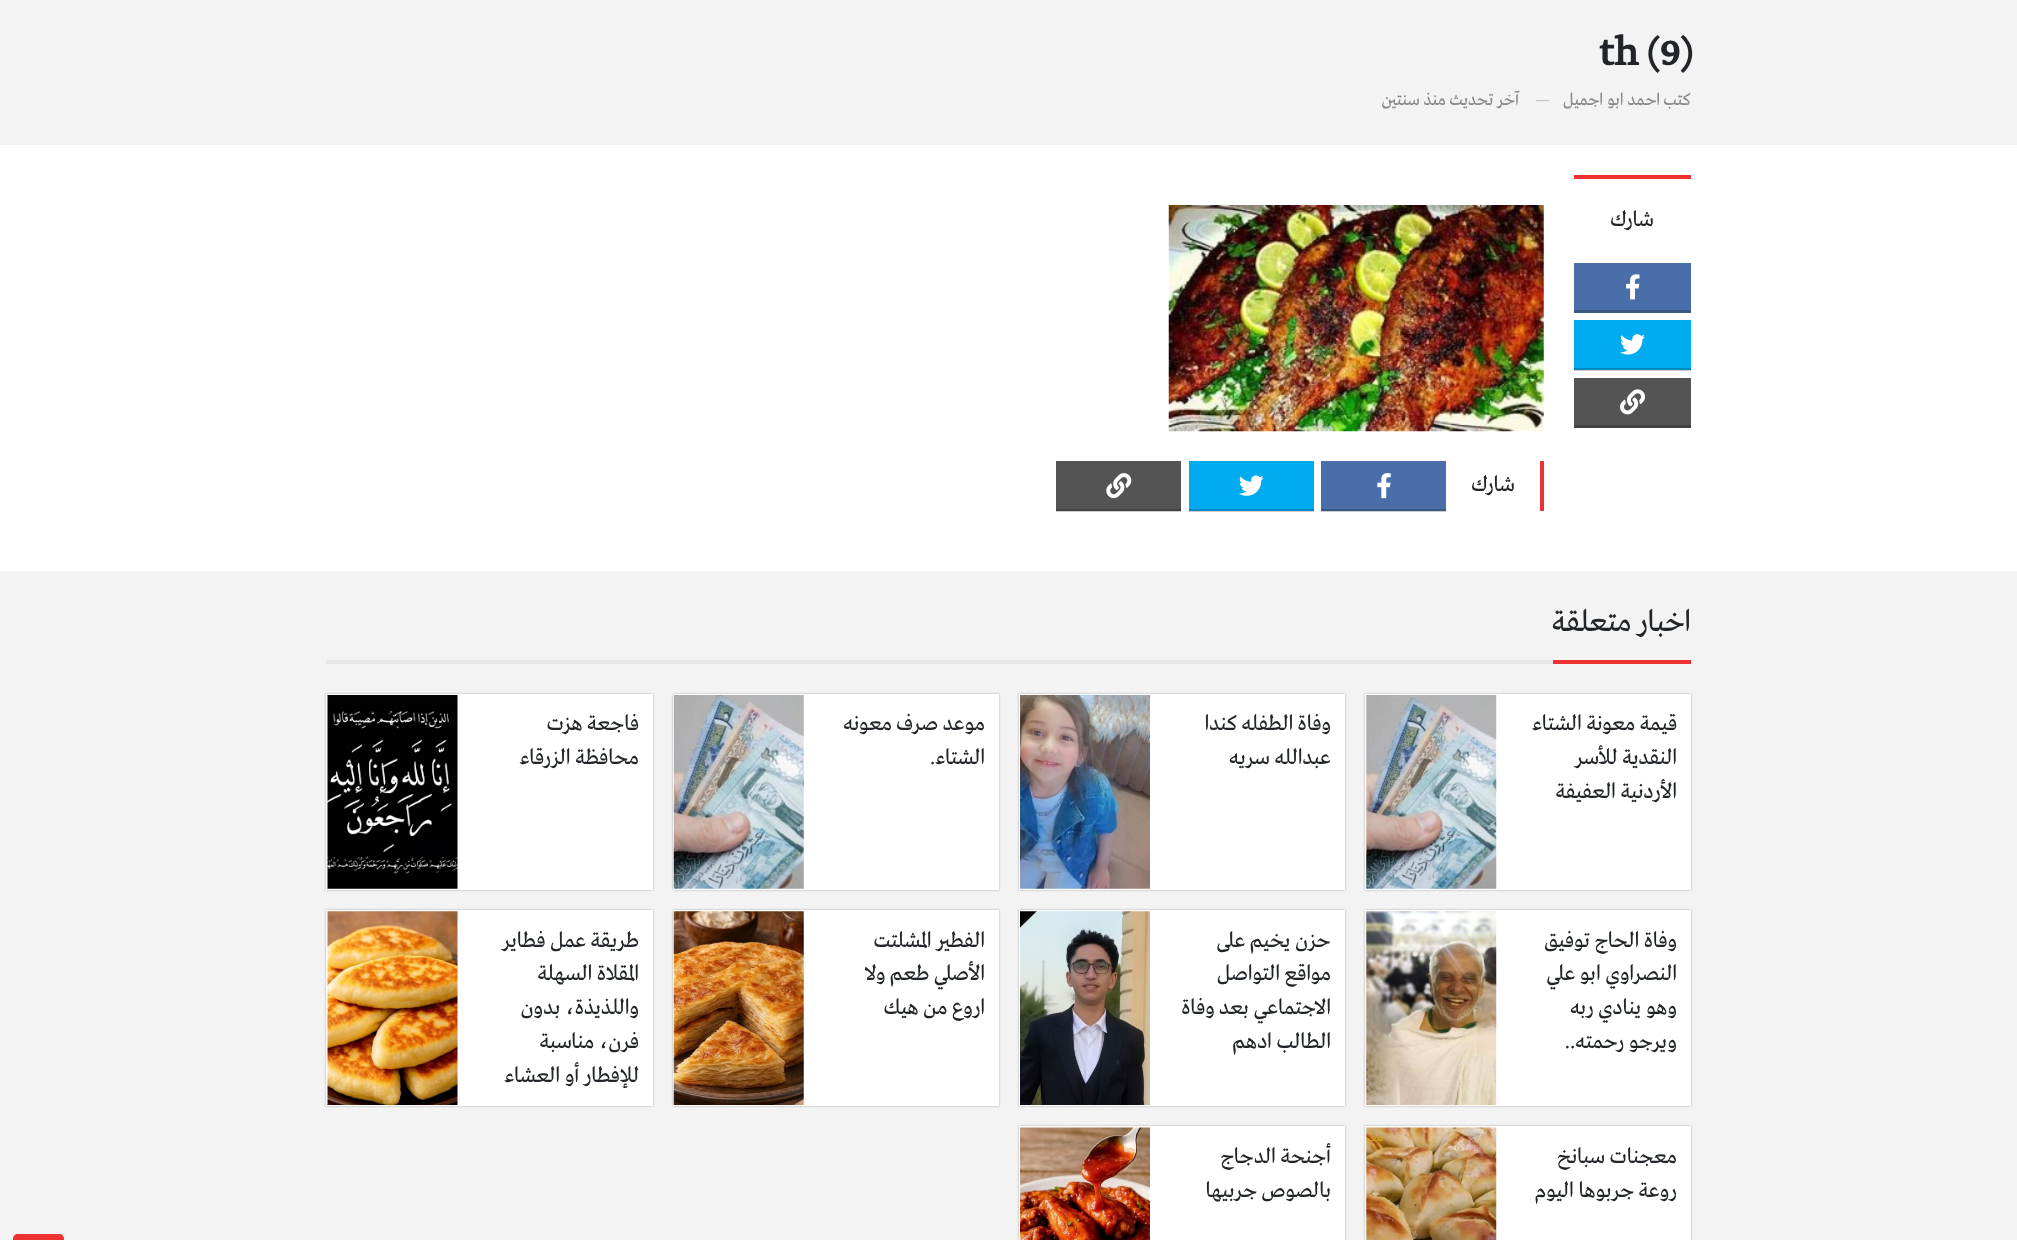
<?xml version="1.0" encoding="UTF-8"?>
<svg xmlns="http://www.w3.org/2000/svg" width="2017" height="1240">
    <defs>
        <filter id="blur1" x="-50%" y="-200%" width="200%" height="500%"><feGaussianBlur stdDeviation="1"/></filter>
    </defs>
    <rect width="100%" height="100%" fill="#F3F3F3"/>
    <text x="1599" y="65" font-family="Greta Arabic" font-size="42" font-weight="700" fill="#212529">th (9)</text>
    <text x="1691" y="105" font-family="Greta Arabic" font-size="18" direction="rtl" fill="#888888">كتب</text>
    <text x="1660" y="105" font-family="Greta Arabic" font-size="18" direction="rtl" fill="#888888">احمد ابو اجميل</text>
    <text x="1535" y="105" font-family="Greta Arabic" font-size="18" fill="#BEBEBE">—</text>
    <text x="1519" y="105" font-family="Greta Arabic" font-size="18" direction="rtl" fill="#888888">آخر تحديث</text>
    <text x="1446" y="105" font-family="Greta Arabic" font-size="18" direction="rtl" fill="#888888">منذ سنتين</text>
    <rect x="0" y="145" width="2017" height="426" fill="#FFFFFF"/>
    <rect x="1056" y="511" width="125" height="1" fill="#CCCCCC"/>
    <rect x="1189" y="511" width="125" height="1" fill="#CCCCCC"/>
    <rect x="1321" y="511" width="125" height="1" fill="#CCCCCC"/>
    <rect x="1574" y="370" width="117" height="1" fill="#CCCCCC"/>
    <rect x="1574" y="175" width="117" height="4" fill="#ED3131"/>
    <text x="1654" y="226" font-family="Greta Arabic" font-size="22.5" direction="rtl" fill="#212529">شارك</text>
    <rect x="1574" y="263" width="117" height="47" fill="#4A6EA9"/>
    <rect x="1574" y="310" width="117" height="3" fill="#3B5887"/>
    <image x="1626" y="274" width="14" height="26" href="img_01.png"/>
    <rect x="1574" y="320" width="117" height="48" fill="#00ABF0"/>
    <rect x="1574" y="368" width="117" height="2" fill="#0089C0"/>
    <image x="1620" y="334" width="25" height="21" href="img_02.png"/>
    <rect x="1574" y="378" width="117" height="47" fill="#545454"/>
    <rect x="1574" y="425" width="117" height="3" fill="#434343"/>
    <image x="1620" y="389" width="25" height="26" href="img_03.png"/>
    <image x="1168" y="205" width="376" height="227" href="img_04.png"/>
    <rect x="1540" y="461" width="4" height="50" fill="#ED3131"/>
    <text x="1515" y="491" font-family="Greta Arabic" font-size="22.5" direction="rtl" fill="#212529">شارك</text>
    <rect x="1321" y="461" width="125" height="48" fill="#4A6EA9"/>
    <rect x="1321" y="509" width="125" height="2" fill="#3B5887"/>
    <image x="1377" y="473" width="14" height="26" href="img_05.png"/>
    <rect x="1189" y="461" width="125" height="48" fill="#00ABF0"/>
    <rect x="1189" y="509" width="125" height="2" fill="#0089C0"/>
    <image x="1238" y="475" width="26" height="21" href="img_06.png"/>
    <rect x="1056" y="461" width="125" height="48" fill="#545454"/>
    <rect x="1056" y="509" width="125" height="2" fill="#434343"/>
    <image x="1106" y="473" width="26" height="26" href="img_07.png"/>
    <rect x="326" y="660" width="1227" height="4" fill="#E7E7E7"/>
    <rect x="1553" y="660" width="138" height="4" fill="#ED3131"/>
    <text x="1691" y="631" font-family="Greta Arabic" font-size="31.5" direction="rtl" fill="#212529">اخبار متعلقة</text>
    <rect x="1365" y="694" width="326" height="196" fill="#000000" fill-opacity="0.3" filter="url(#blur1)"/>
    <rect x="1365" y="694" width="326" height="196" fill="#FFFFFF"/>
    <text font-family="Greta Arabic" font-size="22.5" direction="rtl" fill="#212529">
        <tspan x="1677" y="730">قيمة معونة الشتاء</tspan>
        <tspan x="1677" y="764">النقدية للأسر</tspan>
        <tspan x="1677" y="798">الأردنية العفيفة</tspan>
    </text>
    <image x="1366" y="695" width="131" height="194" href="img_08.png"/>
    <rect x="1019" y="694" width="326" height="196" fill="#000000" fill-opacity="0.3" filter="url(#blur1)"/>
    <rect x="1019" y="694" width="326" height="196" fill="#FFFFFF"/>
    <text font-family="Greta Arabic" font-size="22.5" direction="rtl" fill="#212529">
        <tspan x="1331" y="730">وفاة الطفله كندا</tspan>
        <tspan x="1331" y="764">عبدالله سريه</tspan>
    </text>
    <image x="1020" y="695" width="130" height="194" href="img_09.png"/>
    <rect x="673" y="694" width="326" height="196" fill="#000000" fill-opacity="0.3" filter="url(#blur1)"/>
    <rect x="673" y="694" width="326" height="196" fill="#FFFFFF"/>
    <text font-family="Greta Arabic" font-size="22.5" direction="rtl" fill="#212529">
        <tspan x="985" y="730">موعد صرف معونه</tspan>
        <tspan x="985" y="764">الشتاء.</tspan>
    </text>
    <image x="673" y="695" width="131" height="194" href="img_10.png"/>
    <rect x="326" y="694" width="327" height="196" fill="#000000" fill-opacity="0.3" filter="url(#blur1)"/>
    <rect x="326" y="694" width="327" height="196" fill="#FFFFFF"/>
    <text font-family="Greta Arabic" font-size="22.5" direction="rtl" fill="#212529">
        <tspan x="639" y="730">فاجعة هزت</tspan>
        <tspan x="639" y="764">محافظة الزرقاء</tspan>
    </text>
    <image x="327" y="695" width="131" height="194" href="img_11.png"/>
    <rect x="1365" y="910" width="326" height="196" fill="#000000" fill-opacity="0.3" filter="url(#blur1)"/>
    <rect x="1365" y="910" width="326" height="196" fill="#FFFFFF"/>
    <text font-family="Greta Arabic" font-size="22.5" direction="rtl" fill="#212529">
        <tspan x="1677" y="947">وفاة الحاج توفيق</tspan>
        <tspan x="1677" y="980">النصراوي ابو علي</tspan>
        <tspan x="1677" y="1014">وهو ينادي ربه</tspan>
        <tspan x="1677" y="1048">ويرجو رحمته..</tspan>
    </text>
    <image x="1366" y="911" width="131" height="194" href="img_12.png"/>
    <rect x="1019" y="910" width="326" height="196" fill="#000000" fill-opacity="0.3" filter="url(#blur1)"/>
    <rect x="1019" y="910" width="326" height="196" fill="#FFFFFF"/>
    <text font-family="Greta Arabic" font-size="22.5" direction="rtl" fill="#212529">
        <tspan x="1331" y="947">حزن يخيم على</tspan>
        <tspan x="1331" y="980">مواقع التواصل</tspan>
        <tspan x="1331" y="1014">الاجتماعي بعد وفاة</tspan>
        <tspan x="1331" y="1048">الطالب ادهم</tspan>
    </text>
    <image x="1020" y="911" width="130" height="194" href="img_13.png"/>
    <rect x="673" y="910" width="326" height="196" fill="#000000" fill-opacity="0.3" filter="url(#blur1)"/>
    <rect x="673" y="910" width="326" height="196" fill="#FFFFFF"/>
    <text font-family="Greta Arabic" font-size="22.5" direction="rtl" fill="#212529">
        <tspan x="985" y="947">الفطير المشلتت</tspan>
        <tspan x="985" y="980">الأصلي طعم ولا</tspan>
        <tspan x="985" y="1014">اروع من هيك</tspan>
    </text>
    <image x="673" y="911" width="131" height="194" href="img_14.png"/>
    <rect x="326" y="910" width="327" height="196" fill="#000000" fill-opacity="0.3" filter="url(#blur1)"/>
    <rect x="326" y="910" width="327" height="196" fill="#FFFFFF"/>
    <text font-family="Greta Arabic" font-size="22.5" direction="rtl" fill="#212529">
        <tspan x="639" y="947">طريقة عمل فطاير</tspan>
        <tspan x="639" y="980">المقلاة السهلة</tspan>
        <tspan x="639" y="1014">واللذيذة، بدون</tspan>
        <tspan x="639" y="1048">فرن، مناسبة</tspan>
        <tspan x="639" y="1082">للإفطار أو العشاء</tspan>
    </text>
    <image x="327" y="911" width="131" height="194" href="img_15.png"/>
    <rect x="1365" y="1126" width="326" height="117" fill="#000000" fill-opacity="0.3" filter="url(#blur1)"/>
    <rect x="1365" y="1126" width="326" height="114" fill="#FFFFFF"/>
    <text font-family="Greta Arabic" font-size="22.5" direction="rtl" fill="#212529">
        <tspan x="1677" y="1163">معجنات سبانخ</tspan>
        <tspan x="1677" y="1197">روعة جربوها اليوم</tspan>
    </text>
    <image x="1366" y="1127" width="131" height="113" href="img_16.png"/>
    <rect x="1019" y="1126" width="326" height="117" fill="#000000" fill-opacity="0.3" filter="url(#blur1)"/>
    <rect x="1019" y="1126" width="326" height="114" fill="#FFFFFF"/>
    <text font-family="Greta Arabic" font-size="22.5" direction="rtl" fill="#212529">
        <tspan x="1331" y="1163">أجنحة الدجاج</tspan>
        <tspan x="1331" y="1197">بالصوص جربيها</tspan>
    </text>
    <image x="1020" y="1127" width="130" height="113" href="img_17.png"/>
    <path d="M 18 1234 H 59 C 62 1234 64 1236 64 1239 V 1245 H 13 V 1239 C 13 1236 15 1234 18 1234 Z" fill="#ED3131"/>
</svg>
